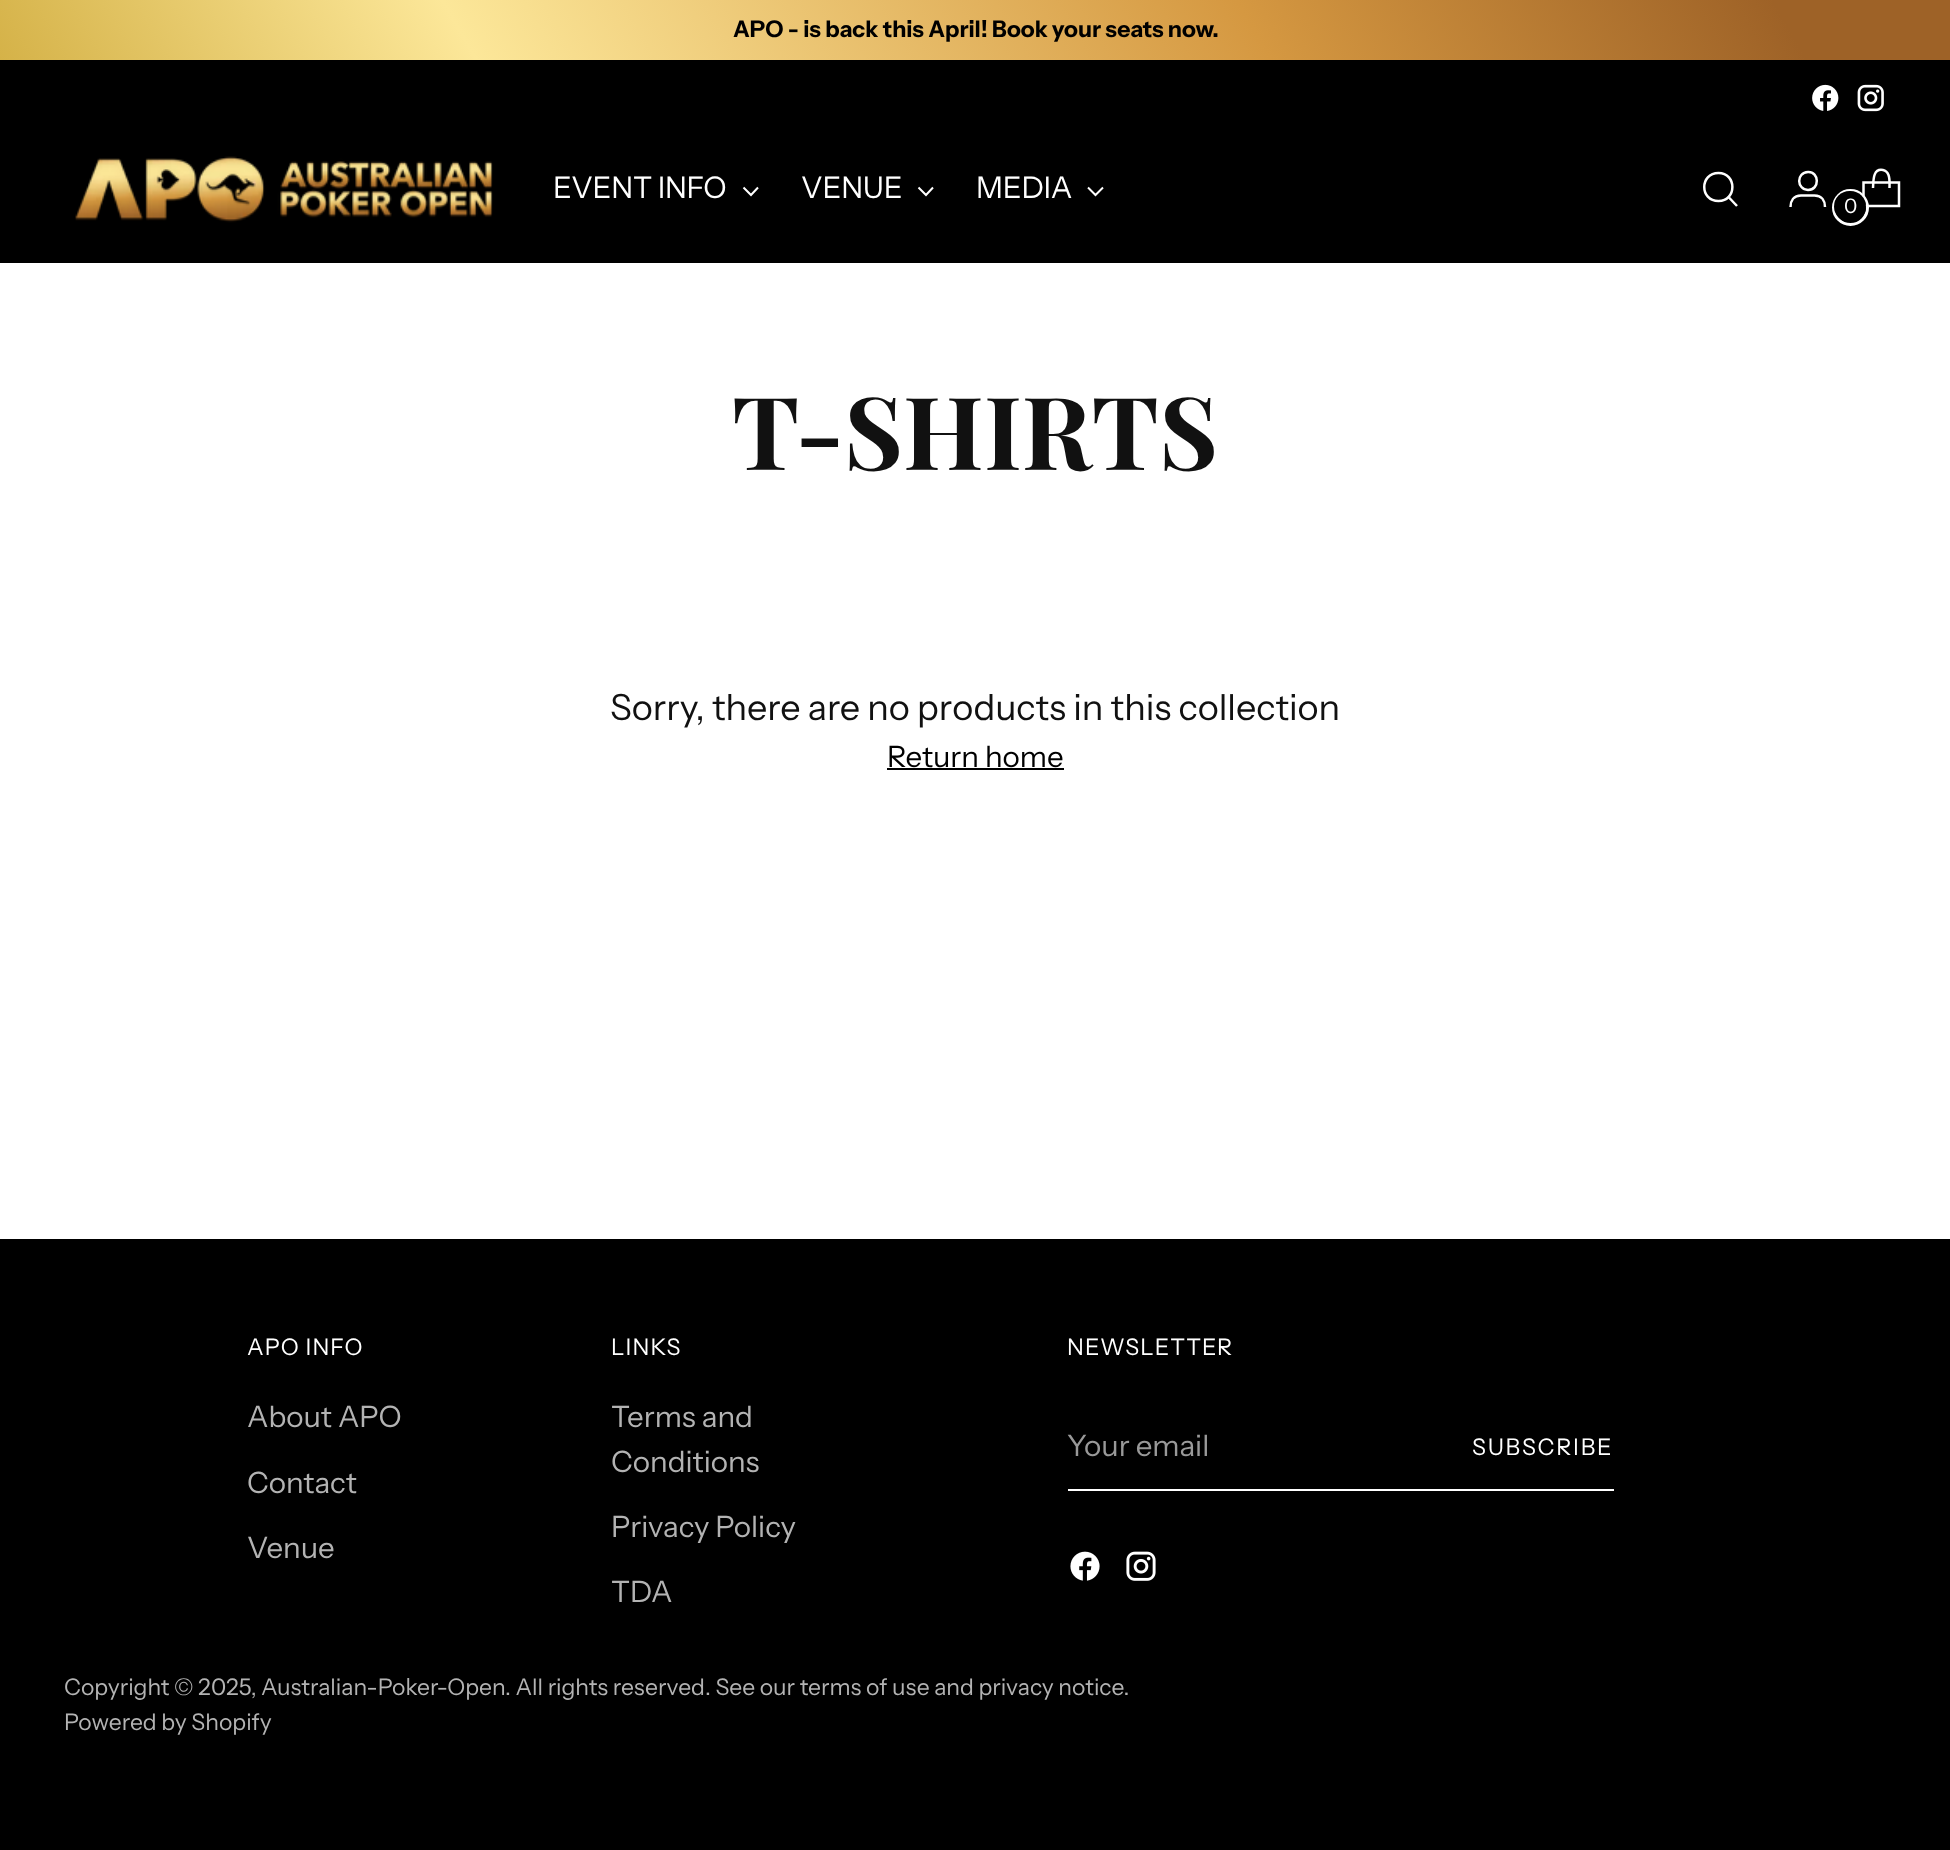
<?xml version="1.0" encoding="UTF-8"?>
<svg xmlns="http://www.w3.org/2000/svg" width="1950" height="1850">
    <defs>
        <linearGradient id="g1" gradientUnits="userSpaceOnUse" x1="231" y1="460" x2="1720" y2="-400"><stop offset="0" stop-color="#D5B248"/><stop offset="0.24" stop-color="#FCE799"/><stop offset="0.64" stop-color="#D59841"/><stop offset="0.91" stop-color="#9E6227"/></linearGradient>
    </defs>
    <rect width="100%" height="100%" fill="#FFFFFF"/>
    <rect x="0" y="0" width="1950" height="60" fill="url(#g1)"/>
    <text x="733" y="37" font-family="Instrument Sans" font-size="22.9" font-weight="700" fill="#000000">APO - is back this April! Book your seats now.</text>
    <rect x="0" y="60" width="1950" height="203" fill="#000000"/>
    <image x="1812" y="84" width="27" height="27" href="img_01.png"/>
    <image x="1857" y="84" width="27" height="28" href="img_02.png"/>
    <image x="75" y="156" width="418" height="67" href="img_03.png"/>
    <text x="553" y="198" font-family="Instrument Sans" font-size="29.75" letter-spacing="-0.25" fill="#FFFFFF">EVENT INFO</text>
    <path d="M 743.5 187.5 L 751 195 L 758 187.5" fill="none" stroke="#FFFFFF" stroke-width="2"/>
    <text x="801" y="198" font-family="Instrument Sans" font-size="29.75" letter-spacing="-0.25" fill="#FFFFFF">VENUE</text>
    <path d="M 918.5 187.5 L 926 195 L 933 187.5" fill="none" stroke="#FFFFFF" stroke-width="2"/>
    <text x="976" y="198" font-family="Instrument Sans" font-size="29.75" letter-spacing="-0.25" fill="#FFFFFF">MEDIA</text>
    <path d="M 1088 187.5 L 1095.5 195 L 1103 187.5" fill="none" stroke="#FFFFFF" stroke-width="2"/>
    <path d="M 1718.5 201 C 1737 201 1737 173 1718.5 173 C 1699.5 173 1699.5 201 1718.5 201 Z" fill="none" stroke="#FFFFFF" stroke-width="2.5" stroke-linecap="round"/>
    <path d="M 1728.5 197 L 1737 206" fill="none" stroke="#FFFFFF" stroke-width="2.5"/>
    <path d="M 1808 190 C 1820 190 1819.5 171.5 1808 172 C 1796 172.5 1796.5 189.5 1808 190 Z M 1790.5 207 C 1790.5 201 1793.5 195.5 1801 195.5 H 1814.5 C 1822 195.5 1825 201 1825 207" fill="none" stroke="#FFFFFF" stroke-width="2.5"/>
    <path d="M 1889.5 188 C 1889.5 183.5 1890 179 1888.5 175 C 1887.5 172.5 1885.5 170.5 1883 170 C 1872.5 168 1873.5 181.5 1873 188" fill="none" stroke="#FFFFFF" stroke-width="2.5" stroke-linejoin="bevel"/>
    <path d="M 1899 206 V 182.5 H 1863.5 V 206 Z" fill="none" stroke="#FFFFFF" stroke-width="2.5"/>
    <circle cx="1850.5" cy="207.5" r="17" fill="none" stroke="#FFFFFF" stroke-width="3"/>
    <rect x="1834" y="191" width="32" height="31" rx="15.5" fill="#000000"/>
    <text x="1844" y="213" font-family="Instrument Sans" font-size="20" fill="#FFFFFF">0</text>
    <text x="732" y="470" font-family="Playfair Display" font-size="101" font-weight="700" fill="#111111">T-SHIRTS</text>
    <text x="610" y="720" font-family="Instrument Sans" font-size="36" fill="#111111">Sorry, there are no products in this collection</text>
    <text x="887" y="767" font-family="Instrument Sans" font-size="29.5" fill="#000000">Return home</text>
    <rect x="887" y="768" width="177" height="2" fill="#000000"/>
    <rect x="0" y="1239" width="1950" height="611" fill="#000000"/>
    <text x="247" y="1355" font-family="Instrument Sans" font-size="22.9" letter-spacing="1.1" fill="#FFFFFF">APO INFO</text>
    <text x="247" y="1427" font-family="Instrument Sans" font-size="29.5" fill="#B3B3B3">About APO</text>
    <text x="247" y="1493" font-family="Instrument Sans" font-size="29.5" fill="#B3B3B3">Contact</text>
    <text x="247" y="1558" font-family="Instrument Sans" font-size="29.5" fill="#B3B3B3">Venue</text>
    <text x="611" y="1355" font-family="Instrument Sans" font-size="22.9" letter-spacing="1.1" fill="#FFFFFF">LINKS</text>
    <text font-family="Instrument Sans" font-size="29.5" fill="#B3B3B3">
        <tspan x="611" y="1427">Terms and</tspan>
        <tspan x="611" y="1472">Conditions</tspan>
    </text>
    <text x="611" y="1537" font-family="Instrument Sans" font-size="29.5" fill="#B3B3B3">Privacy Policy</text>
    <text x="611" y="1602" font-family="Instrument Sans" font-size="29.5" fill="#B3B3B3">TDA</text>
    <text x="1067" y="1355" font-family="Instrument Sans" font-size="22.9" letter-spacing="1.1" fill="#FFFFFF">NEWSLETTER</text>
    <rect x="1068" y="1489" width="546" height="2" fill="#FFFFFF"/>
    <text x="1067" y="1456" font-family="Instrument Sans" font-size="29.5" fill="#999999">Your email</text>
    <text x="1472" y="1455" font-family="Instrument Sans" font-size="22.9" letter-spacing="1.75" fill="#FFFFFF">SUBSCRIBE</text>
    <image x="1070" y="1551" width="30" height="30" href="img_04.png"/>
    <image x="1126" y="1551" width="30" height="30" href="img_05.png"/>
    <text x="64" y="1695" font-family="Instrument Sans" font-size="22.9" fill="#B3B3B3">Copyright © 2025, Australian-Poker-Open</text>
    <text x="505" y="1695" font-family="Instrument Sans" font-size="22.9" fill="#B3B3B3">. All rights reserved. See our terms of use and privacy notice.</text>
    <text x="64" y="1730" font-family="Instrument Sans" font-size="22.9" fill="#B3B3B3">Powered by Shopify</text>
</svg>
